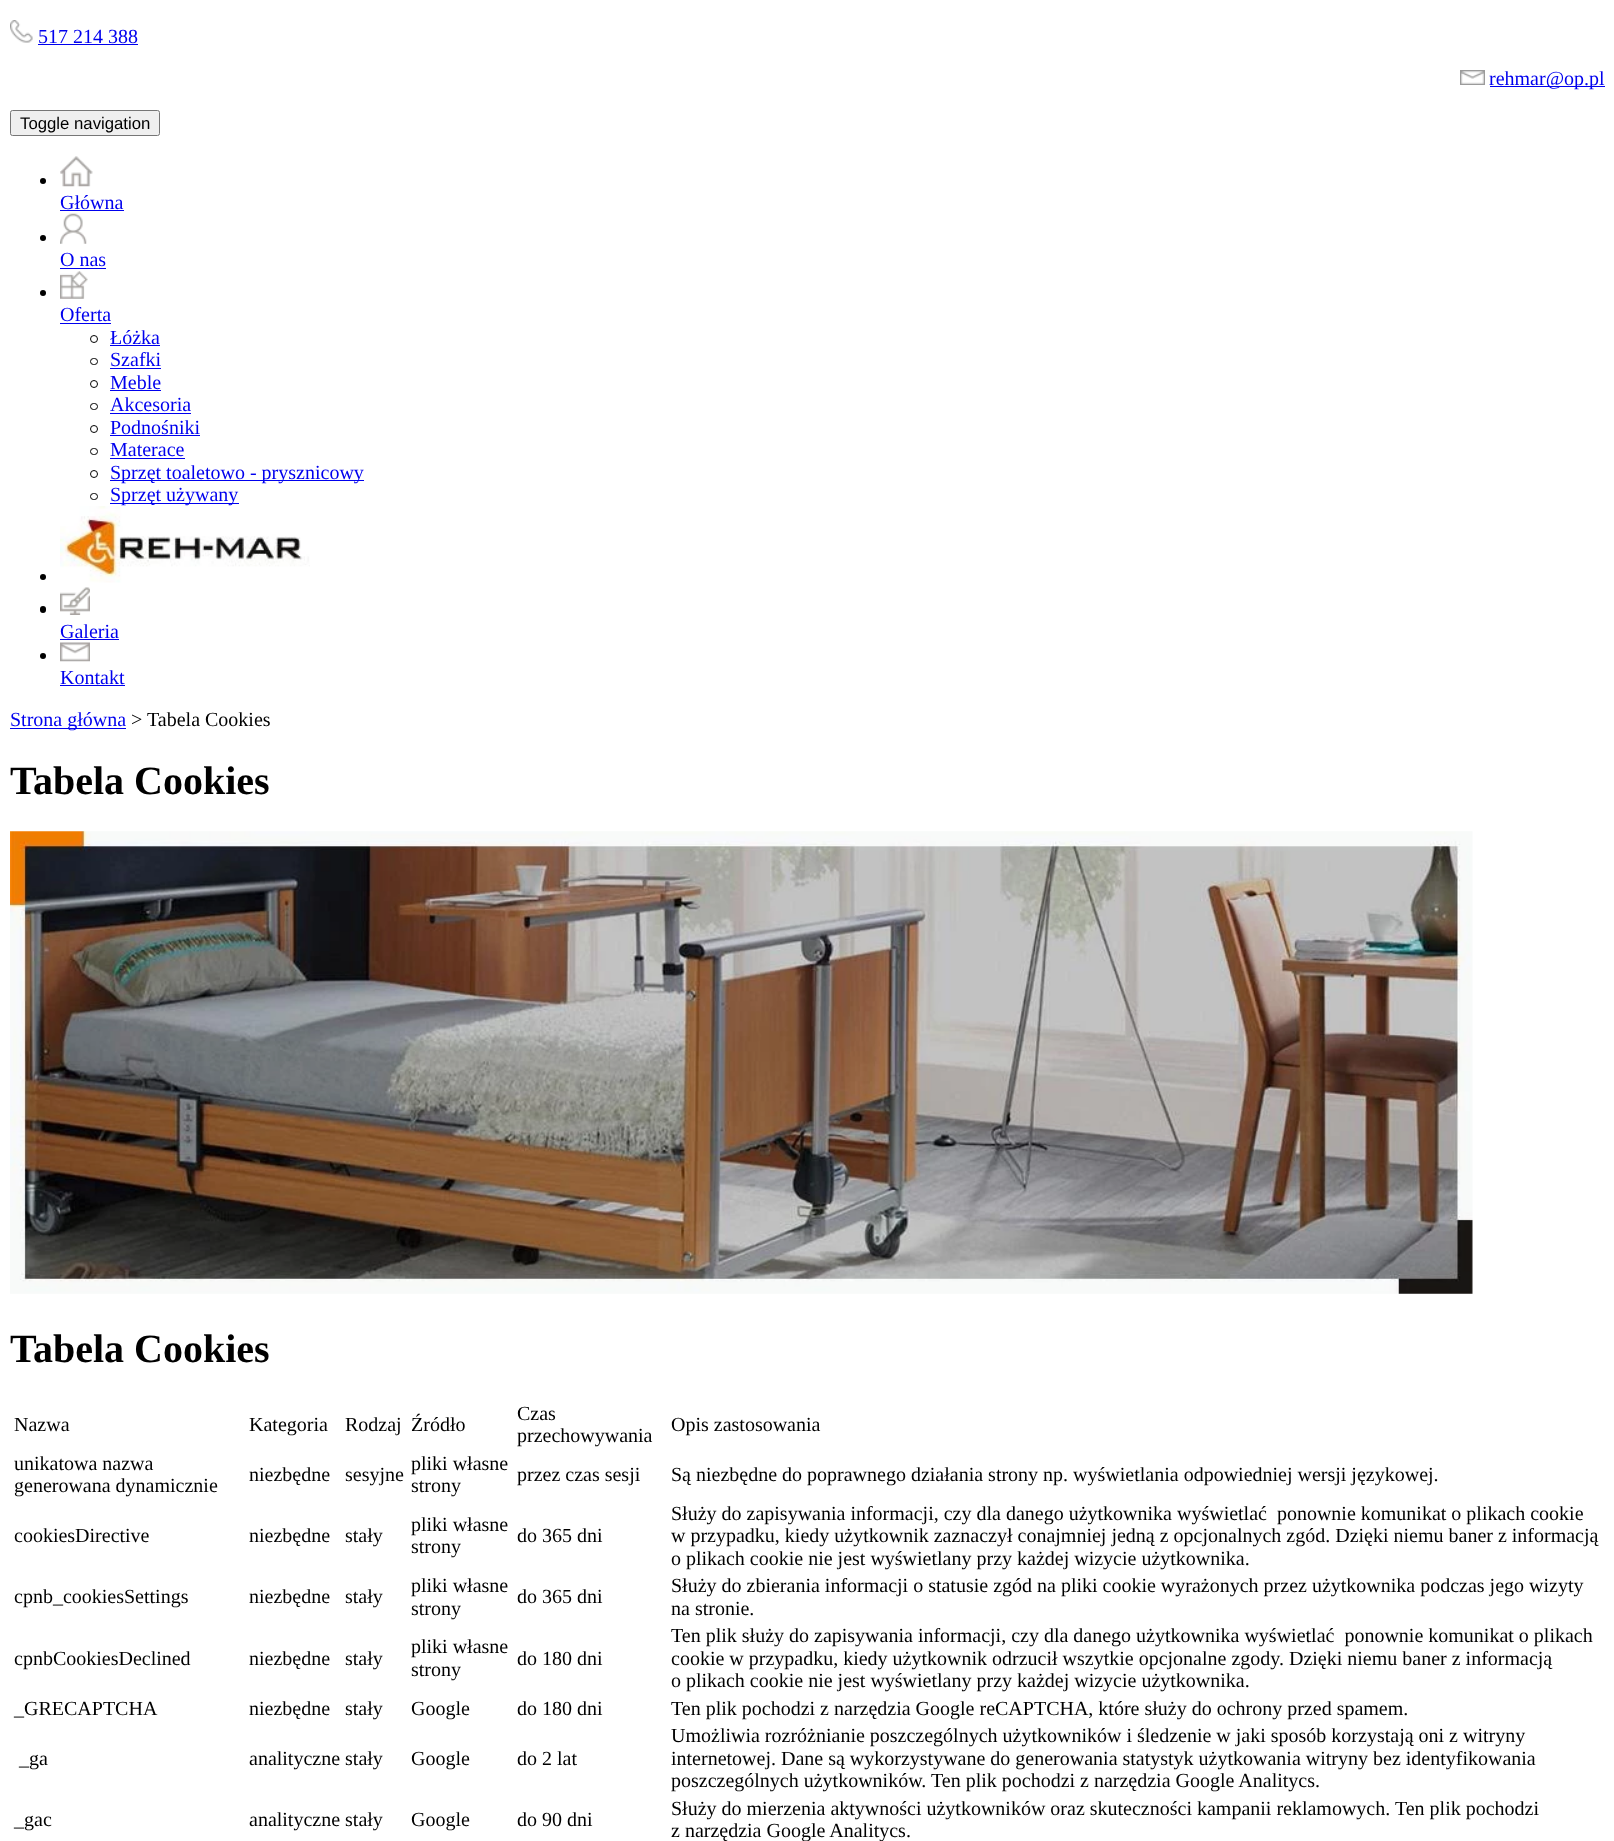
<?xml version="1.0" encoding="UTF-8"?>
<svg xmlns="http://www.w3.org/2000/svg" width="1614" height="1841">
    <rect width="100%" height="100%" fill="#FFFFFF"/>
    <image x="10" y="20" width="23" height="23" href="img_01.png"/>
    <text x="38" y="43" font-family="Liberation Serif" font-size="20" fill="#0000EE">517 214 388</text>
    <rect x="38" y="44" width="100" height="1" fill="#0000EE"/>
    <image x="1460" y="70" width="25" height="15" href="img_02.png"/>
    <rect x="1490" y="86" width="115" height="1" fill="#0000EE"/>
    <text x="1489" y="85" font-family="Liberation Serif" font-size="20" fill="#0000EE">rehmar@op.pl</text>
    <rect x="10.5" y="110.5" width="149" height="25" rx="2" fill="#EFEFEF" stroke="#767676"/>
    <text x="20" y="129" font-family="Liberation Sans" font-size="16.75" fill="#000000">Toggle navigation</text>
    <circle cx="43" cy="181" r="3" fill="#000000"/>
    <image x="60" y="156" width="33" height="31" href="img_03.png"/>
    <text x="60" y="209" font-family="Liberation Serif" font-size="20" fill="#0000EE">Główna</text>
    <rect x="60" y="210" width="64" height="1" fill="#0000EE"/>
    <circle cx="43" cy="238" r="3" fill="#000000"/>
    <image x="60" y="213" width="27" height="31" href="img_04.png"/>
    <text x="60" y="266" font-family="Liberation Serif" font-size="20" fill="#0000EE">O nas</text>
    <rect x="60" y="268" width="46" height="1" fill="#0000EE"/>
    <circle cx="43" cy="293" r="3" fill="#000000"/>
    <image x="60" y="271" width="28" height="28" href="img_05.png"/>
    <text x="60" y="321" font-family="Liberation Serif" font-size="20" fill="#0000EE">Oferta</text>
    <rect x="60" y="323" width="51" height="1" fill="#0000EE"/>
    <circle cx="94" cy="339" r="3.5" fill="none" stroke="#000000"/>
    <text x="110" y="344" font-family="Liberation Serif" font-size="20" fill="#0000EE">Łóżka</text>
    <rect x="110" y="345" width="50" height="1" fill="#0000EE"/>
    <rect x="90.5" y="358.5" width="7" height="6" rx="3" fill="none" stroke="#000000"/>
    <text x="110" y="366" font-family="Liberation Serif" font-size="20" fill="#0000EE">Szafki</text>
    <rect x="110" y="368" width="51" height="1" fill="#0000EE"/>
    <circle cx="94" cy="384" r="3.5" fill="none" stroke="#000000"/>
    <text x="110" y="389" font-family="Liberation Serif" font-size="20" fill="#0000EE">Meble</text>
    <rect x="110" y="390" width="51" height="1" fill="#0000EE"/>
    <rect x="90.5" y="403.5" width="7" height="6" rx="3" fill="none" stroke="#000000"/>
    <text x="110" y="411" font-family="Liberation Serif" font-size="20" fill="#0000EE">Akcesoria</text>
    <rect x="110" y="413" width="81" height="1" fill="#0000EE"/>
    <circle cx="94" cy="429" r="3.5" fill="none" stroke="#000000"/>
    <text x="110" y="434" font-family="Liberation Serif" font-size="20" fill="#0000EE">Podnośniki</text>
    <rect x="110" y="435" width="90" height="1" fill="#0000EE"/>
    <rect x="90.5" y="448.5" width="7" height="6" rx="3" fill="none" stroke="#000000"/>
    <text x="110" y="456" font-family="Liberation Serif" font-size="20" fill="#0000EE">Materace</text>
    <rect x="110" y="458" width="75" height="1" fill="#0000EE"/>
    <circle cx="94" cy="474" r="3.5" fill="none" stroke="#000000"/>
    <rect x="110" y="480" width="254" height="1" fill="#0000EE"/>
    <text x="110" y="479" font-family="Liberation Serif" font-size="20" fill="#0000EE">Sprzęt toaletowo - prysznicowy</text>
    <rect x="90.5" y="493.5" width="7" height="6" rx="3" fill="none" stroke="#000000"/>
    <rect x="110" y="503" width="129" height="1" fill="#0000EE"/>
    <text x="110" y="501" font-family="Liberation Serif" font-size="20" fill="#0000EE">Sprzęt używany</text>
    <circle cx="43" cy="577" r="3" fill="#000000"/>
    <image x="60" y="506" width="250" height="77" href="img_06.png"/>
    <rect x="40" y="606" width="6" height="7" rx="3" fill="#000000"/>
    <image x="60" y="587" width="30" height="28" href="img_07.png"/>
    <text x="60" y="638" font-family="Liberation Serif" font-size="20" fill="#0000EE">Galeria</text>
    <rect x="60" y="639" width="59" height="1" fill="#0000EE"/>
    <circle cx="43" cy="656" r="3" fill="#000000"/>
    <image x="60" y="642" width="30" height="20" href="img_08.png"/>
    <text x="60" y="684" font-family="Liberation Serif" font-size="20" fill="#0000EE">Kontakt</text>
    <rect x="60" y="685" width="65" height="1" fill="#0000EE"/>
    <rect x="10" y="728" width="116" height="1" fill="#0000EE"/>
    <text x="10" y="726" font-family="Liberation Serif" font-size="20" fill="#0000EE">Strona główna</text>
    <text x="131" y="726" font-family="Liberation Serif" font-size="20" fill="#000000">&gt;</text>
    <text x="147" y="726" font-family="Liberation Serif" font-size="20" fill="#000000">Tabela Cookies</text>
    <text x="10" y="794" font-family="Liberation Serif" font-size="40" font-weight="700" fill="#000000">Tabela Cookies</text>
    <image x="10" y="831" width="1463" height="463" href="img_09.png"/>
    <text x="10" y="1362" font-family="Liberation Serif" font-size="40" font-weight="700" fill="#000000">Tabela Cookies</text>
    <text x="14" y="1431" font-family="Liberation Serif" font-size="20" fill="#000000">Nazwa</text>
    <text x="249" y="1431" font-family="Liberation Serif" font-size="20" fill="#000000">Kategoria</text>
    <text x="345" y="1431" font-family="Liberation Serif" font-size="20" fill="#000000">Rodzaj</text>
    <text x="411" y="1431" font-family="Liberation Serif" font-size="20" fill="#000000">Źródło</text>
    <text font-family="Liberation Serif" font-size="20" fill="#000000">
        <tspan x="517" y="1420">Czas</tspan>
        <tspan x="517" y="1442">przechowywania</tspan>
    </text>
    <text x="671" y="1431" font-family="Liberation Serif" font-size="20" fill="#000000">Opis zastosowania</text>
    <text font-family="Liberation Serif" font-size="20" fill="#000000">
        <tspan x="14" y="1470">unikatowa nazwa</tspan>
        <tspan x="14" y="1492">generowana dynamicznie</tspan>
    </text>
    <text x="249" y="1481" font-family="Liberation Serif" font-size="20" fill="#000000">niezbędne</text>
    <text x="345" y="1481" font-family="Liberation Serif" font-size="20" fill="#000000">sesyjne</text>
    <text font-family="Liberation Serif" font-size="20" fill="#000000">
        <tspan x="411" y="1470">pliki własne</tspan>
        <tspan x="411" y="1492">strony</tspan>
    </text>
    <text x="517" y="1481" font-family="Liberation Serif" font-size="20" fill="#000000">przez czas sesji</text>
    <text x="671" y="1481" font-family="Liberation Serif" font-size="20" fill="#000000">Są niezbędne do poprawnego działania strony np. wyświetlania odpowiedniej wersji językowej.</text>
    <text x="14" y="1542" font-family="Liberation Serif" font-size="20" fill="#000000">cookiesDirective</text>
    <text x="249" y="1542" font-family="Liberation Serif" font-size="20" fill="#000000">niezbędne</text>
    <text x="345" y="1542" font-family="Liberation Serif" font-size="20" fill="#000000">stały</text>
    <text font-family="Liberation Serif" font-size="20" fill="#000000">
        <tspan x="411" y="1531">pliki własne</tspan>
        <tspan x="411" y="1553">strony</tspan>
    </text>
    <text x="517" y="1542" font-family="Liberation Serif" font-size="20" fill="#000000">do 365 dni</text>
    <text font-family="Liberation Serif" font-size="20" fill="#000000" xml:space="preserve"><tspan x="671" y="1520">Służy do zapisywania informacji, czy dla danego użytkownika wyświetlać  ponownie komunikat o plikach cookie</tspan><tspan x="671" y="1542">w przypadku, kiedy użytkownik zaznaczył conajmniej jedną z opcjonalnych zgód. Dzięki niemu baner z informacją</tspan><tspan x="671" y="1565">o plikach cookie nie jest wyświetlany przy każdej wizycie użytkownika.</tspan></text>
    <text x="14" y="1603" font-family="Liberation Serif" font-size="20" fill="#000000">cpnb_cookiesSettings</text>
    <text x="249" y="1603" font-family="Liberation Serif" font-size="20" fill="#000000">niezbędne</text>
    <text x="345" y="1603" font-family="Liberation Serif" font-size="20" fill="#000000">stały</text>
    <text font-family="Liberation Serif" font-size="20" fill="#000000">
        <tspan x="411" y="1592">pliki własne</tspan>
        <tspan x="411" y="1615">strony</tspan>
    </text>
    <text x="517" y="1603" font-family="Liberation Serif" font-size="20" fill="#000000">do 365 dni</text>
    <text font-family="Liberation Serif" font-size="20" fill="#000000">
        <tspan x="671" y="1592">Służy do zbierania informacji o statusie zgód na pliki cookie wyrażonych przez użytkownika podczas jego wizyty</tspan>
        <tspan x="671" y="1615">na stronie.</tspan>
    </text>
    <text x="14" y="1665" font-family="Liberation Serif" font-size="20" fill="#000000">cpnbCookiesDeclined</text>
    <text x="249" y="1665" font-family="Liberation Serif" font-size="20" fill="#000000">niezbędne</text>
    <text x="345" y="1665" font-family="Liberation Serif" font-size="20" fill="#000000">stały</text>
    <text font-family="Liberation Serif" font-size="20" fill="#000000">
        <tspan x="411" y="1653">pliki własne</tspan>
        <tspan x="411" y="1676">strony</tspan>
    </text>
    <text x="517" y="1665" font-family="Liberation Serif" font-size="20" fill="#000000">do 180 dni</text>
    <text font-family="Liberation Serif" font-size="20" fill="#000000" xml:space="preserve"><tspan x="671" y="1642">Ten plik służy do zapisywania informacji, czy dla danego użytkownika wyświetlać  ponownie komunikat o plikach</tspan><tspan x="671" y="1665">cookie w przypadku, kiedy użytkownik odrzucił wszytkie opcjonalne zgody. Dzięki niemu baner z informacją</tspan><tspan x="671" y="1687">o plikach cookie nie jest wyświetlany przy każdej wizycie użytkownika.</tspan></text>
    <text x="14" y="1715" font-family="Liberation Serif" font-size="20" fill="#000000">_GRECAPTCHA</text>
    <text x="249" y="1715" font-family="Liberation Serif" font-size="20" fill="#000000">niezbędne</text>
    <text x="345" y="1715" font-family="Liberation Serif" font-size="20" fill="#000000">stały</text>
    <text x="411" y="1715" font-family="Liberation Serif" font-size="20" fill="#000000">Google</text>
    <text x="517" y="1715" font-family="Liberation Serif" font-size="20" fill="#000000">do 180 dni</text>
    <text x="671" y="1715" font-family="Liberation Serif" font-size="20" fill="#000000">Ten plik pochodzi z narzędzia Google reCAPTCHA, które służy do ochrony przed spamem.</text>
    <text x="19" y="1765" font-family="Liberation Serif" font-size="20" fill="#000000">_ga</text>
    <text x="249" y="1765" font-family="Liberation Serif" font-size="20" fill="#000000">analityczne stały</text>
    <text x="411" y="1765" font-family="Liberation Serif" font-size="20" fill="#000000">Google</text>
    <text x="517" y="1765" font-family="Liberation Serif" font-size="20" fill="#000000">do 2 lat</text>
    <text font-family="Liberation Serif" font-size="20" fill="#000000">
        <tspan x="671" y="1742">Umożliwia rozróżnianie poszczególnych użytkowników i śledzenie w jaki sposób korzystają oni z witryny</tspan>
        <tspan x="671" y="1765">internetowej. Dane są wykorzystywane do generowania statystyk użytkowania witryny bez identyfikowania</tspan>
        <tspan x="671" y="1787">poszczególnych użytkowników. Ten plik pochodzi z narzędzia Google Analitycs.</tspan>
    </text>
    <text x="14" y="1826" font-family="Liberation Serif" font-size="20" fill="#000000">_gac</text>
    <text x="249" y="1826" font-family="Liberation Serif" font-size="20" fill="#000000">analityczne stały</text>
    <text x="411" y="1826" font-family="Liberation Serif" font-size="20" fill="#000000">Google</text>
    <text x="517" y="1826" font-family="Liberation Serif" font-size="20" fill="#000000">do 90 dni</text>
    <text font-family="Liberation Serif" font-size="20" fill="#000000">
        <tspan x="671" y="1815">Służy do mierzenia aktywności użytkowników oraz skuteczności kampanii reklamowych. Ten plik pochodzi</tspan>
        <tspan x="671" y="1837">z narzędzia Google Analitycs.</tspan>
    </text>
</svg>
